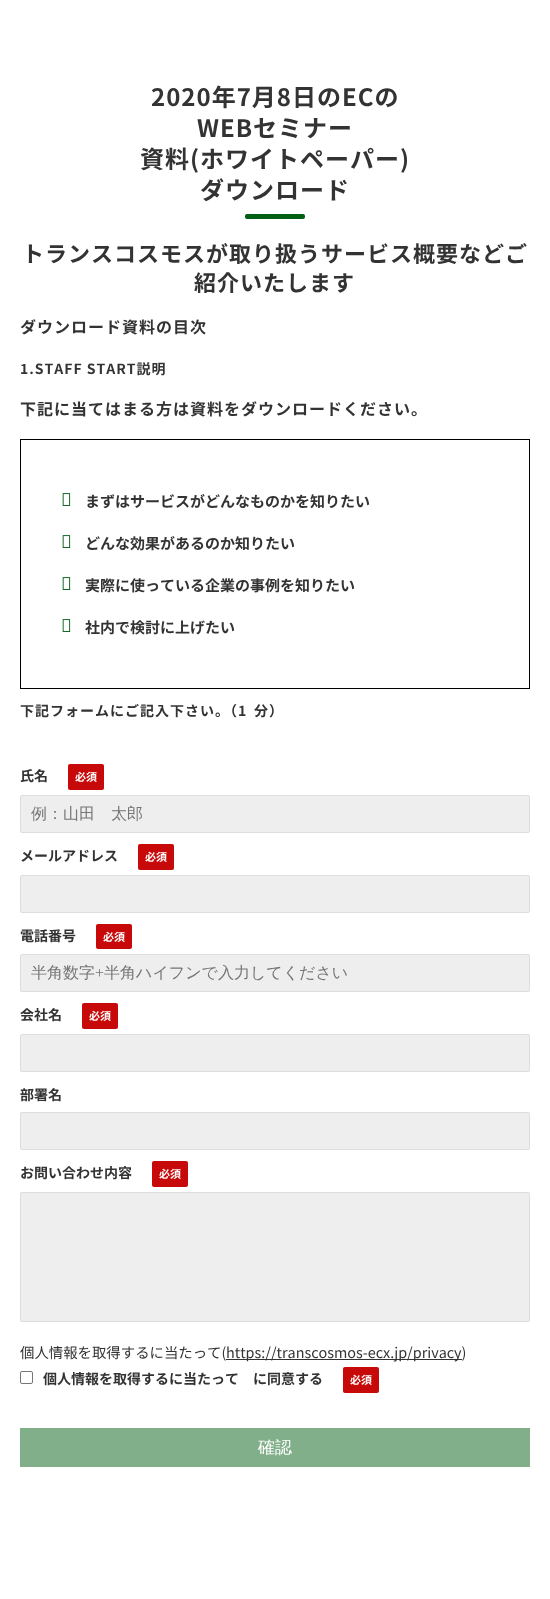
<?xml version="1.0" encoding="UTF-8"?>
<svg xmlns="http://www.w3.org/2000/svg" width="550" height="1599">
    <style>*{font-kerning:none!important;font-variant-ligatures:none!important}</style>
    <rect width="100%" height="100%" fill="#FFFFFF"/>
    <text x="151" y="106" font-family="Noto Sans JP" font-size="24" font-weight="700" letter-spacing="1" fill="#333333">2020年7月8日のECの</text>
    <text x="197" y="137" font-family="Noto Sans JP" font-size="24" font-weight="700" letter-spacing="1" fill="#333333">WEBセミナー</text>
    <text x="140" y="168" font-family="Noto Sans JP" font-size="24" font-weight="700" letter-spacing="1" fill="#333333">資料(ホワイトペーパー)</text>
    <text x="200" y="199" font-family="Noto Sans JP" font-size="24" font-weight="700" letter-spacing="1" fill="#333333">ダウンロード</text>
    <rect x="245" y="214" width="60" height="5" rx="2" fill="#005E15"/>
    <text x="22" y="262" font-family="Noto Sans JP" font-size="22" font-weight="700" letter-spacing="1" fill="#333333">トランスコスモスが取り扱うサービス概要などご</text>
    <text x="194" y="291" font-family="Noto Sans JP" font-size="22" font-weight="700" letter-spacing="1" fill="#333333">紹介いたします</text>
    <text x="20" y="333" font-family="Noto Sans JP" font-size="16" font-weight="700" letter-spacing="1" fill="#333333">ダウンロード資料の目次</text>
    <text x="20" y="374" font-family="Noto Sans JP" font-size="14" font-weight="700" letter-spacing="1" fill="#333333">1.STAFF START説明</text>
    <text x="20" y="415" font-family="Noto Sans JP" font-size="16" font-weight="700" letter-spacing="1" fill="#333333">下記に当てはまる方は資料をダウンロードください。</text>
    <rect x="20.5" y="439.5" width="509" height="249" fill="none" stroke="#000000"/>
    <image x="62" y="493" width="9" height="13" href="img_01.png"/>
    <text x="85" y="507" font-family="Noto Sans JP" font-size="15" font-weight="700" fill="#333333">まずはサービスがどんなものかを知りたい</text>
    <image x="62" y="535" width="9" height="13" href="img_01.png"/>
    <text x="85" y="549" font-family="Noto Sans JP" font-size="15" font-weight="700" fill="#333333">どんな効果があるのか知りたい</text>
    <image x="62" y="577" width="9" height="13" href="img_01.png"/>
    <text x="85" y="591" font-family="Noto Sans JP" font-size="15" font-weight="700" fill="#333333">実際に使っている企業の事例を知りたい</text>
    <image x="62" y="619" width="9" height="13" href="img_01.png"/>
    <text x="85" y="633" font-family="Noto Sans JP" font-size="15" font-weight="700" fill="#333333">社内で検討に上げたい</text>
    <text x="20" y="716" font-family="Noto Sans JP" font-size="14" font-weight="700" letter-spacing="1" fill="#333333">下記フォームにご記入下さい。（1</text>
    <text x="254" y="716" font-family="Noto Sans JP" font-size="14" font-weight="700" letter-spacing="1" fill="#333333">分）</text>
    <text x="20" y="781" font-family="Noto Sans JP" font-size="14" font-weight="700" fill="#333333">氏名</text>
    <rect x="68" y="764" width="36" height="26" rx="2" fill="#C70909"/>
    <text x="75" y="781" font-family="Noto Sans JP" font-size="11" font-weight="700" fill="#FFFFFF">必須</text>
    <rect x="20.5" y="795.5" width="509" height="37" rx="1.5" fill="#EEEEEE" stroke="#DDDDDD"/>
    <text x="31" y="819" font-family="WenQuanYi Zen Hei" font-size="16" font-weight="500" fill="#757575">例：山田　太郎</text>
    <text x="20" y="861" font-family="Noto Sans JP" font-size="14" font-weight="700" fill="#333333">メールアドレス</text>
    <rect x="138" y="844" width="36" height="26" rx="2" fill="#C70909"/>
    <text x="145" y="861" font-family="Noto Sans JP" font-size="11" font-weight="700" fill="#FFFFFF">必須</text>
    <rect x="20.5" y="875.5" width="509" height="37" rx="1.5" fill="#EEEEEE" stroke="#DDDDDD"/>
    <text x="20" y="941" font-family="Noto Sans JP" font-size="14" font-weight="700" fill="#333333">電話番号</text>
    <rect x="96" y="924" width="36" height="25" rx="2" fill="#C70909"/>
    <text x="103" y="941" font-family="Noto Sans JP" font-size="11" font-weight="700" fill="#FFFFFF">必須</text>
    <rect x="20.5" y="954.5" width="509" height="37" rx="1.5" fill="#EEEEEE" stroke="#DDDDDD"/>
    <text x="31" y="978" font-family="WenQuanYi Zen Hei" font-size="16" font-weight="500" fill="#757575">半角数字</text>
    <text x="95" y="978" font-family="Liberation Serif" font-size="16" fill="#757575">+</text>
    <text x="104" y="978" font-family="WenQuanYi Zen Hei" font-size="16" font-weight="500" fill="#757575">半角ハイフンで入力してください</text>
    <text x="20" y="1020" font-family="Noto Sans JP" font-size="14" font-weight="700" fill="#333333">会社名</text>
    <rect x="82" y="1003" width="36" height="26" rx="2" fill="#C70909"/>
    <text x="89" y="1020" font-family="Noto Sans JP" font-size="11" font-weight="700" fill="#FFFFFF">必須</text>
    <rect x="20.5" y="1034.5" width="509" height="37" rx="1.5" fill="#EEEEEE" stroke="#DDDDDD"/>
    <text x="20" y="1100" font-family="Noto Sans JP" font-size="14" font-weight="700" fill="#333333">部署名</text>
    <rect x="20.5" y="1112.5" width="509" height="37" rx="1.5" fill="#EEEEEE" stroke="#DDDDDD"/>
    <text x="20" y="1178" font-family="Noto Sans JP" font-size="14" font-weight="700" fill="#333333">お問い合わせ内容</text>
    <rect x="152" y="1161" width="36" height="26" rx="2" fill="#C70909"/>
    <text x="159" y="1178" font-family="Noto Sans JP" font-size="11" font-weight="700" fill="#FFFFFF">必須</text>
    <rect x="20.5" y="1192.5" width="509" height="129" rx="1.5" fill="#EEEEEE" stroke="#DDDDDD"/>
    <text x="20" y="1358" font-family="Noto Sans JP" font-size="14.4" fill="#333333">個人情報を取得するに当たって(</text>
    <rect x="226" y="1359" width="236" height="1" fill="#333333"/>
    <text x="226" y="1358" font-family="Noto Sans JP" font-size="14.4" fill="#333333">https://transcosmos-ecx.jp/privacy)</text>
    <rect x="20.5" y="1371.5" width="12" height="12" rx="1.5" fill="none" stroke="#767676"/>
    <text x="43" y="1384" font-family="Noto Sans JP" font-size="14" font-weight="700" fill="#333333">個人情報を取得するに当たって　に同意する</text>
    <rect x="343" y="1367" width="36" height="26" rx="2" fill="#C70909"/>
    <text x="350" y="1384" font-family="Noto Sans JP" font-size="11" font-weight="700" fill="#FFFFFF">必須</text>
    <rect x="20" y="1428" width="510" height="39" fill="#80AF8A"/>
    <text x="258" y="1453" font-family="WenQuanYi Zen Hei" font-size="17" font-weight="500" fill="#FFFFFF">確認</text>
</svg>
